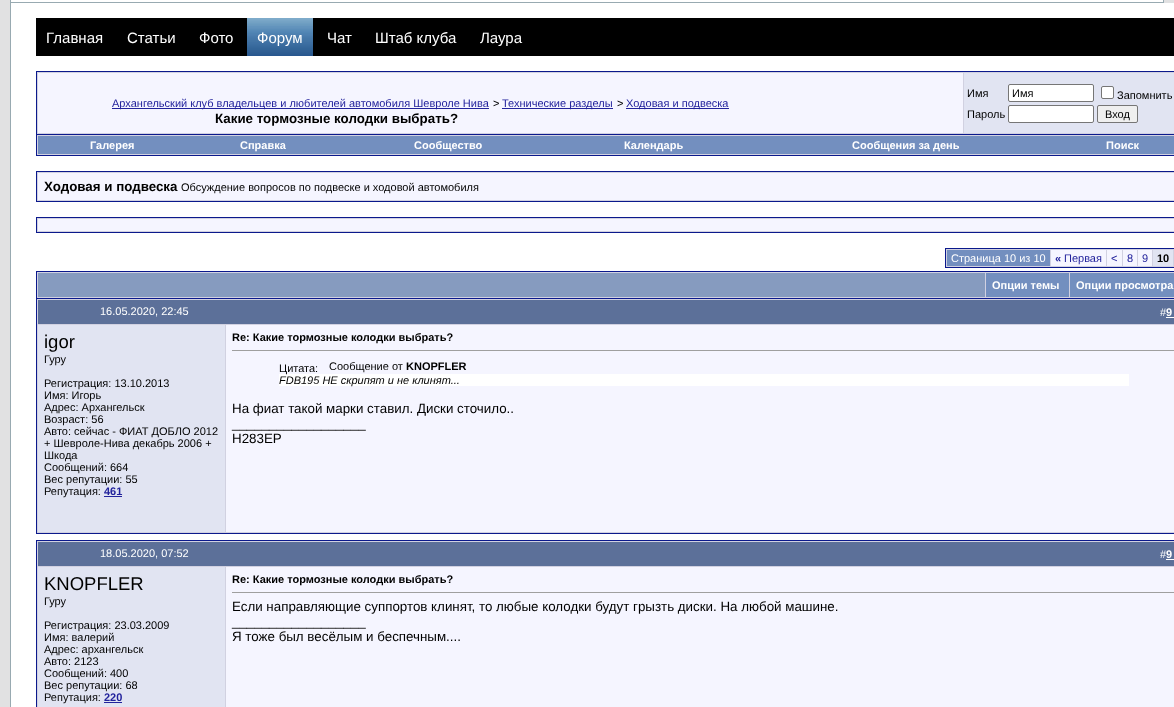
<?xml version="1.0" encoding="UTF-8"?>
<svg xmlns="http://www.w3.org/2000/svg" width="1174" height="707">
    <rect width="100%" height="100%" fill="#E1E1E2"/>
    <rect x="10.5" y="-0.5" width="1153" height="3" fill="#FFFFFF" stroke="#98AAB1"/>
    <rect x="11" y="3" width="1163" height="537" fill="#FFFFFF"/>
    <rect x="10" y="3" width="1" height="704" fill="#98AAB1"/>
    <rect x="36" y="18" width="1138" height="38" fill="#000000"/>
    <text x="46" y="43" font-family="Liberation Sans" font-size="15" fill="#FFFFFF">Главная</text>
    <text x="127" y="43" font-family="Liberation Sans" font-size="15" fill="#FFFFFF">Статьи</text>
    <text x="199" y="43" font-family="Liberation Sans" font-size="15" fill="#FFFFFF">Фото</text>
    <image x="247" y="18" width="66" height="38" href="img_01.png"/>
    <text x="257" y="43" font-family="Liberation Sans" font-size="15" fill="#FFFFFF">Форум</text>
    <text x="327" y="43" font-family="Liberation Sans" font-size="15" fill="#FFFFFF">Чат</text>
    <text x="375" y="43" font-family="Liberation Sans" font-size="15" fill="#FFFFFF">Штаб клуба</text>
    <text x="480" y="43" font-family="Liberation Sans" font-size="15" fill="#FFFFFF">Лаура</text>
    <rect x="36.5" y="71.5" width="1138" height="63" fill="#D1D1E1" stroke="#0B198C"/>
    <rect x="38" y="73" width="925" height="60" fill="#F5F5FF"/>
    <rect x="112" y="108" width="377" height="1" fill="#22229C"/>
    <text x="112" y="107" font-family="Liberation Sans" font-size="11" fill="#22229C">Архангельский клуб владельцев и любителей автомобиля Шевроле Нива</text>
    <text x="493" y="107" font-family="Liberation Sans" font-size="11" fill="#000000">&gt;</text>
    <rect x="502" y="108" width="111" height="1" fill="#22229C"/>
    <text x="502" y="107" font-family="Liberation Sans" font-size="11" fill="#22229C">Технические разделы</text>
    <text x="617" y="107" font-family="Liberation Sans" font-size="11" fill="#000000">&gt;</text>
    <rect x="626" y="108" width="103" height="1" fill="#22229C"/>
    <text x="626" y="107" font-family="Liberation Sans" font-size="11" fill="#22229C">Ходовая и подвеска</text>
    <text x="215" y="123" font-family="Liberation Sans" font-size="13.35" font-weight="700" fill="#000000">Какие тормозные колодки выбрать?</text>
    <rect x="964" y="73" width="210" height="60" fill="#E1E4F2"/>
    <text x="967" y="97" font-family="Liberation Sans" font-size="11" fill="#000000">Имя</text>
    <rect x="1008.5" y="84.5" width="85" height="17" rx="1.5" fill="#FFFFFF" stroke="#767676"/>
    <text x="1012" y="97" font-family="Liberation Sans" font-size="11" fill="#000000">Имя</text>
    <rect x="1101.5" y="86.5" width="12" height="12" rx="1.5" fill="#FFFFFF" stroke="#767676"/>
    <text x="1117" y="99" font-family="Liberation Sans" font-size="11" fill="#000000">Запомнить</text>
    <text x="967" y="118" font-family="Liberation Sans" font-size="11" fill="#000000">Пароль</text>
    <rect x="1008.5" y="105.5" width="85" height="17" rx="1.5" fill="#FFFFFF" stroke="#767676"/>
    <rect x="1097.5" y="105.5" width="40" height="17" rx="1.5" fill="#EFEFEF" stroke="#767676"/>
    <text x="1105" y="118" font-family="Liberation Sans" font-size="11" fill="#000000">Вход</text>
    <rect x="37" y="135" width="1137" height="20" fill="#D1D1E1"/>
    <rect x="36" y="155" width="1138" height="1" fill="#0B198C"/>
    <rect x="36" y="135" width="1" height="21" fill="#0B198C"/>
    <rect x="38" y="136" width="1136" height="18" fill="#738FBF"/>
    <text x="90" y="149" font-family="Liberation Sans" font-size="11" font-weight="700" fill="#FFFFFF">Галерея</text>
    <text x="240" y="149" font-family="Liberation Sans" font-size="11" font-weight="700" fill="#FFFFFF">Справка</text>
    <text x="414" y="149" font-family="Liberation Sans" font-size="11" font-weight="700" fill="#FFFFFF">Сообщество</text>
    <text x="624" y="149" font-family="Liberation Sans" font-size="11" font-weight="700" fill="#FFFFFF">Календарь</text>
    <text x="852" y="149" font-family="Liberation Sans" font-size="11" font-weight="700" fill="#FFFFFF">Сообщения за день</text>
    <text x="1106" y="149" font-family="Liberation Sans" font-size="11" font-weight="700" fill="#FFFFFF">Поиск</text>
    <rect x="36.5" y="171.5" width="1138" height="30" fill="#D1D1E1" stroke="#0B198C"/>
    <rect x="38" y="173" width="1136" height="27" fill="#F5F5FF"/>
    <text x="44" y="191" font-family="Liberation Sans" font-size="13.35" font-weight="700" fill="#000000">Ходовая и подвеска</text>
    <text x="181" y="191" font-family="Liberation Sans" font-size="11" fill="#000000">Обсуждение вопросов по подвеске и ходовой автомобиля</text>
    <rect x="36.5" y="217.5" width="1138" height="15" fill="#D1D1E1" stroke="#0B198C"/>
    <rect x="38" y="219" width="1136" height="12" fill="#F5F5FF"/>
    <rect x="945.5" y="248.5" width="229" height="19" fill="#D1D1E1" stroke="#0B198C"/>
    <rect x="947" y="250" width="103" height="16" fill="#738FBF"/>
    <text x="951" y="262" font-family="Liberation Sans" font-size="11" fill="#FFFFFF">Страница 10 из 10</text>
    <rect x="1051" y="250" width="55" height="16" fill="#F5F5FF"/>
    <text x="1055" y="262" font-family="Liberation Sans" font-size="11" font-weight="700" fill="#22229C">«</text>
    <text x="1064" y="262" font-family="Liberation Sans" font-size="11" fill="#22229C">Первая</text>
    <rect x="1107" y="250" width="15" height="16" fill="#F5F5FF"/>
    <text x="1111" y="262" font-family="Liberation Sans" font-size="11" fill="#22229C">&lt;</text>
    <rect x="1123" y="250" width="14" height="16" fill="#F5F5FF"/>
    <text x="1127" y="262" font-family="Liberation Sans" font-size="11" fill="#22229C">8</text>
    <rect x="1138" y="250" width="14" height="16" fill="#F5F5FF"/>
    <text x="1142" y="262" font-family="Liberation Sans" font-size="11" fill="#22229C">9</text>
    <rect x="1153" y="250" width="20" height="16" fill="#E1E4F2"/>
    <text x="1157" y="262" font-family="Liberation Sans" font-size="11" font-weight="700" fill="#000000">10</text>
    <rect x="37" y="272" width="1137" height="26" fill="#D1D1E1"/>
    <rect x="36" y="271" width="1138" height="1" fill="#0B198C"/>
    <rect x="36" y="271" width="1" height="27" fill="#0B198C"/>
    <rect x="38" y="273" width="947" height="24" fill="#869BBF"/>
    <rect x="986" y="273" width="83" height="24" fill="#738FBF"/>
    <text x="992" y="289" font-family="Liberation Sans" font-size="11" font-weight="700" fill="#FFFFFF">Опции темы</text>
    <rect x="1070" y="273" width="104" height="24" fill="#738FBF"/>
    <text x="1076" y="289" font-family="Liberation Sans" font-size="11" font-weight="700" fill="#FFFFFF">Опции просмотра</text>
    <rect x="36.5" y="298.5" width="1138" height="235" fill="none" stroke="#0B198C"/>
    <rect x="38" y="300" width="1136" height="24" fill="#5C7099"/>
    <rect x="37" y="299" width="1137" height="1" fill="#D1D1E1"/>
    <rect x="37" y="324" width="1137" height="1" fill="#D1D1E1"/>
    <rect x="37" y="299" width="1" height="204" fill="#D1D1E1"/>
    <text x="100" y="315" font-family="Liberation Sans" font-size="11" fill="#FFFFFF">16.05.2020, 22:45</text>
    <text x="1160" y="316" font-family="Liberation Sans" font-size="11" fill="#FFFFFF">#</text>
    <text x="1166" y="316" font-family="Liberation Sans" font-size="11" font-weight="700" fill="#FFFFFF">9</text>
    <rect x="1166" y="317" width="8" height="1" fill="#FFFFFF"/>
    <rect x="38" y="325" width="187" height="207" fill="#E1E4F2"/>
    <rect x="225" y="325" width="1" height="208" fill="#D1D1E1"/>
    <text x="44" y="348" font-family="Liberation Sans" font-size="18.5" fill="#000000">igor</text>
    <text x="44" y="363" font-family="Liberation Sans" font-size="11" fill="#000000">Гуру</text>
    <text font-family="Liberation Sans" font-size="11" fill="#000000">
        <tspan x="44" y="387">Регистрация: 13.10.2013</tspan>
        <tspan x="44" y="399">Имя: Игорь</tspan>
        <tspan x="44" y="411">Адрес: Архангельск</tspan>
        <tspan x="44" y="423">Возраст: 56</tspan>
        <tspan x="44" y="435">Авто: сейчас - ФИАТ ДОБЛО 2012</tspan>
        <tspan x="44" y="447">+ Шевроле-Нива декабрь 2006 +</tspan>
        <tspan x="44" y="459">Шкода</tspan>
        <tspan x="44" y="471">Сообщений: 664</tspan>
        <tspan x="44" y="483">Вес репутации: 55</tspan>
        <tspan x="44" y="495">Репутация:</tspan>
    </text>
    <text x="104" y="495" font-family="Liberation Sans" font-size="11" font-weight="700" fill="#22229C">461</text>
    <rect x="104" y="496" width="18" height="1" fill="#22229C"/>
    <rect x="226" y="325" width="948" height="207" fill="#F5F5FF"/>
    <text x="232" y="341" font-family="Liberation Sans" font-size="11" font-weight="700" fill="#000000">Re: Какие тормозные колодки выбрать?</text>
    <rect x="232" y="350" width="942" height="1" fill="#9F9F9F"/>
    <rect x="279" y="374" width="850" height="12" fill="#FFFFFF"/>
    <text x="279" y="372" font-family="Liberation Sans" font-size="11" fill="#000000">Цитата:</text>
    <text x="329" y="370" font-family="Liberation Sans" font-size="11" fill="#000000">Сообщение от</text>
    <text x="406" y="370" font-family="Liberation Sans" font-size="11" font-weight="700" fill="#000000">KNOPFLER</text>
    <text x="279" y="384" font-family="Liberation Sans" font-size="11" font-style="italic" fill="#000000">FDB195 НЕ скрипят и не клинят...</text>
    <text font-family="Liberation Sans" font-size="13.35" fill="#000000">
        <tspan x="232" y="413">На фиат такой марки ставил. Диски сточило..</tspan>
        <tspan x="232" y="428">__________________</tspan>
        <tspan x="232" y="443">Н283ЕР</tspan>
    </text>
    <rect x="37" y="532" width="1137" height="1" fill="#D1D1E1"/>
    <rect x="37" y="503" width="1" height="30" fill="#D1D1E1"/>
    <rect x="11" y="540" width="25" height="167" fill="#FFFFFF"/>
    <rect x="36.5" y="540.5" width="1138" height="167" fill="none" stroke="#0B198C"/>
    <rect x="38" y="542" width="1136" height="24" fill="#5C7099"/>
    <rect x="37" y="541" width="1137" height="1" fill="#D1D1E1"/>
    <rect x="37" y="566" width="1137" height="1" fill="#D1D1E1"/>
    <rect x="37" y="541" width="1" height="166" fill="#D1D1E1"/>
    <text x="100" y="557" font-family="Liberation Sans" font-size="11" fill="#FFFFFF">18.05.2020, 07:52</text>
    <text x="1160" y="558" font-family="Liberation Sans" font-size="11" fill="#FFFFFF">#</text>
    <text x="1166" y="558" font-family="Liberation Sans" font-size="11" font-weight="700" fill="#FFFFFF">9</text>
    <rect x="1166" y="559" width="8" height="1" fill="#FFFFFF"/>
    <rect x="38" y="567" width="187" height="140" fill="#E1E4F2"/>
    <rect x="225" y="567" width="1" height="140" fill="#D1D1E1"/>
    <text x="44" y="590" font-family="Liberation Sans" font-size="18.5" fill="#000000">KNOPFLER</text>
    <text x="44" y="605" font-family="Liberation Sans" font-size="11" fill="#000000">Гуру</text>
    <text font-family="Liberation Sans" font-size="11" fill="#000000">
        <tspan x="44" y="629">Регистрация: 23.03.2009</tspan>
        <tspan x="44" y="641">Имя: валерий</tspan>
        <tspan x="44" y="653">Адрес: архангельск</tspan>
        <tspan x="44" y="665">Авто: 2123</tspan>
        <tspan x="44" y="677">Сообщений: 400</tspan>
        <tspan x="44" y="689">Вес репутации: 68</tspan>
        <tspan x="44" y="701">Репутация:</tspan>
    </text>
    <text x="104" y="701" font-family="Liberation Sans" font-size="11" font-weight="700" fill="#22229C">220</text>
    <rect x="104" y="702" width="18" height="1" fill="#22229C"/>
    <rect x="226" y="567" width="948" height="140" fill="#F5F5FF"/>
    <text x="232" y="583" font-family="Liberation Sans" font-size="11" font-weight="700" fill="#000000">Re: Какие тормозные колодки выбрать?</text>
    <rect x="232" y="592" width="942" height="1" fill="#9F9F9F"/>
    <text font-family="Liberation Sans" font-size="13.35" fill="#000000">
        <tspan x="232" y="611">Если направляющие суппортов клинят, то любые колодки будут грызть диски. На любой машине.</tspan>
        <tspan x="232" y="626">__________________</tspan>
        <tspan x="232" y="641">Я тоже был весёлым и беспечным....</tspan>
    </text>
</svg>
